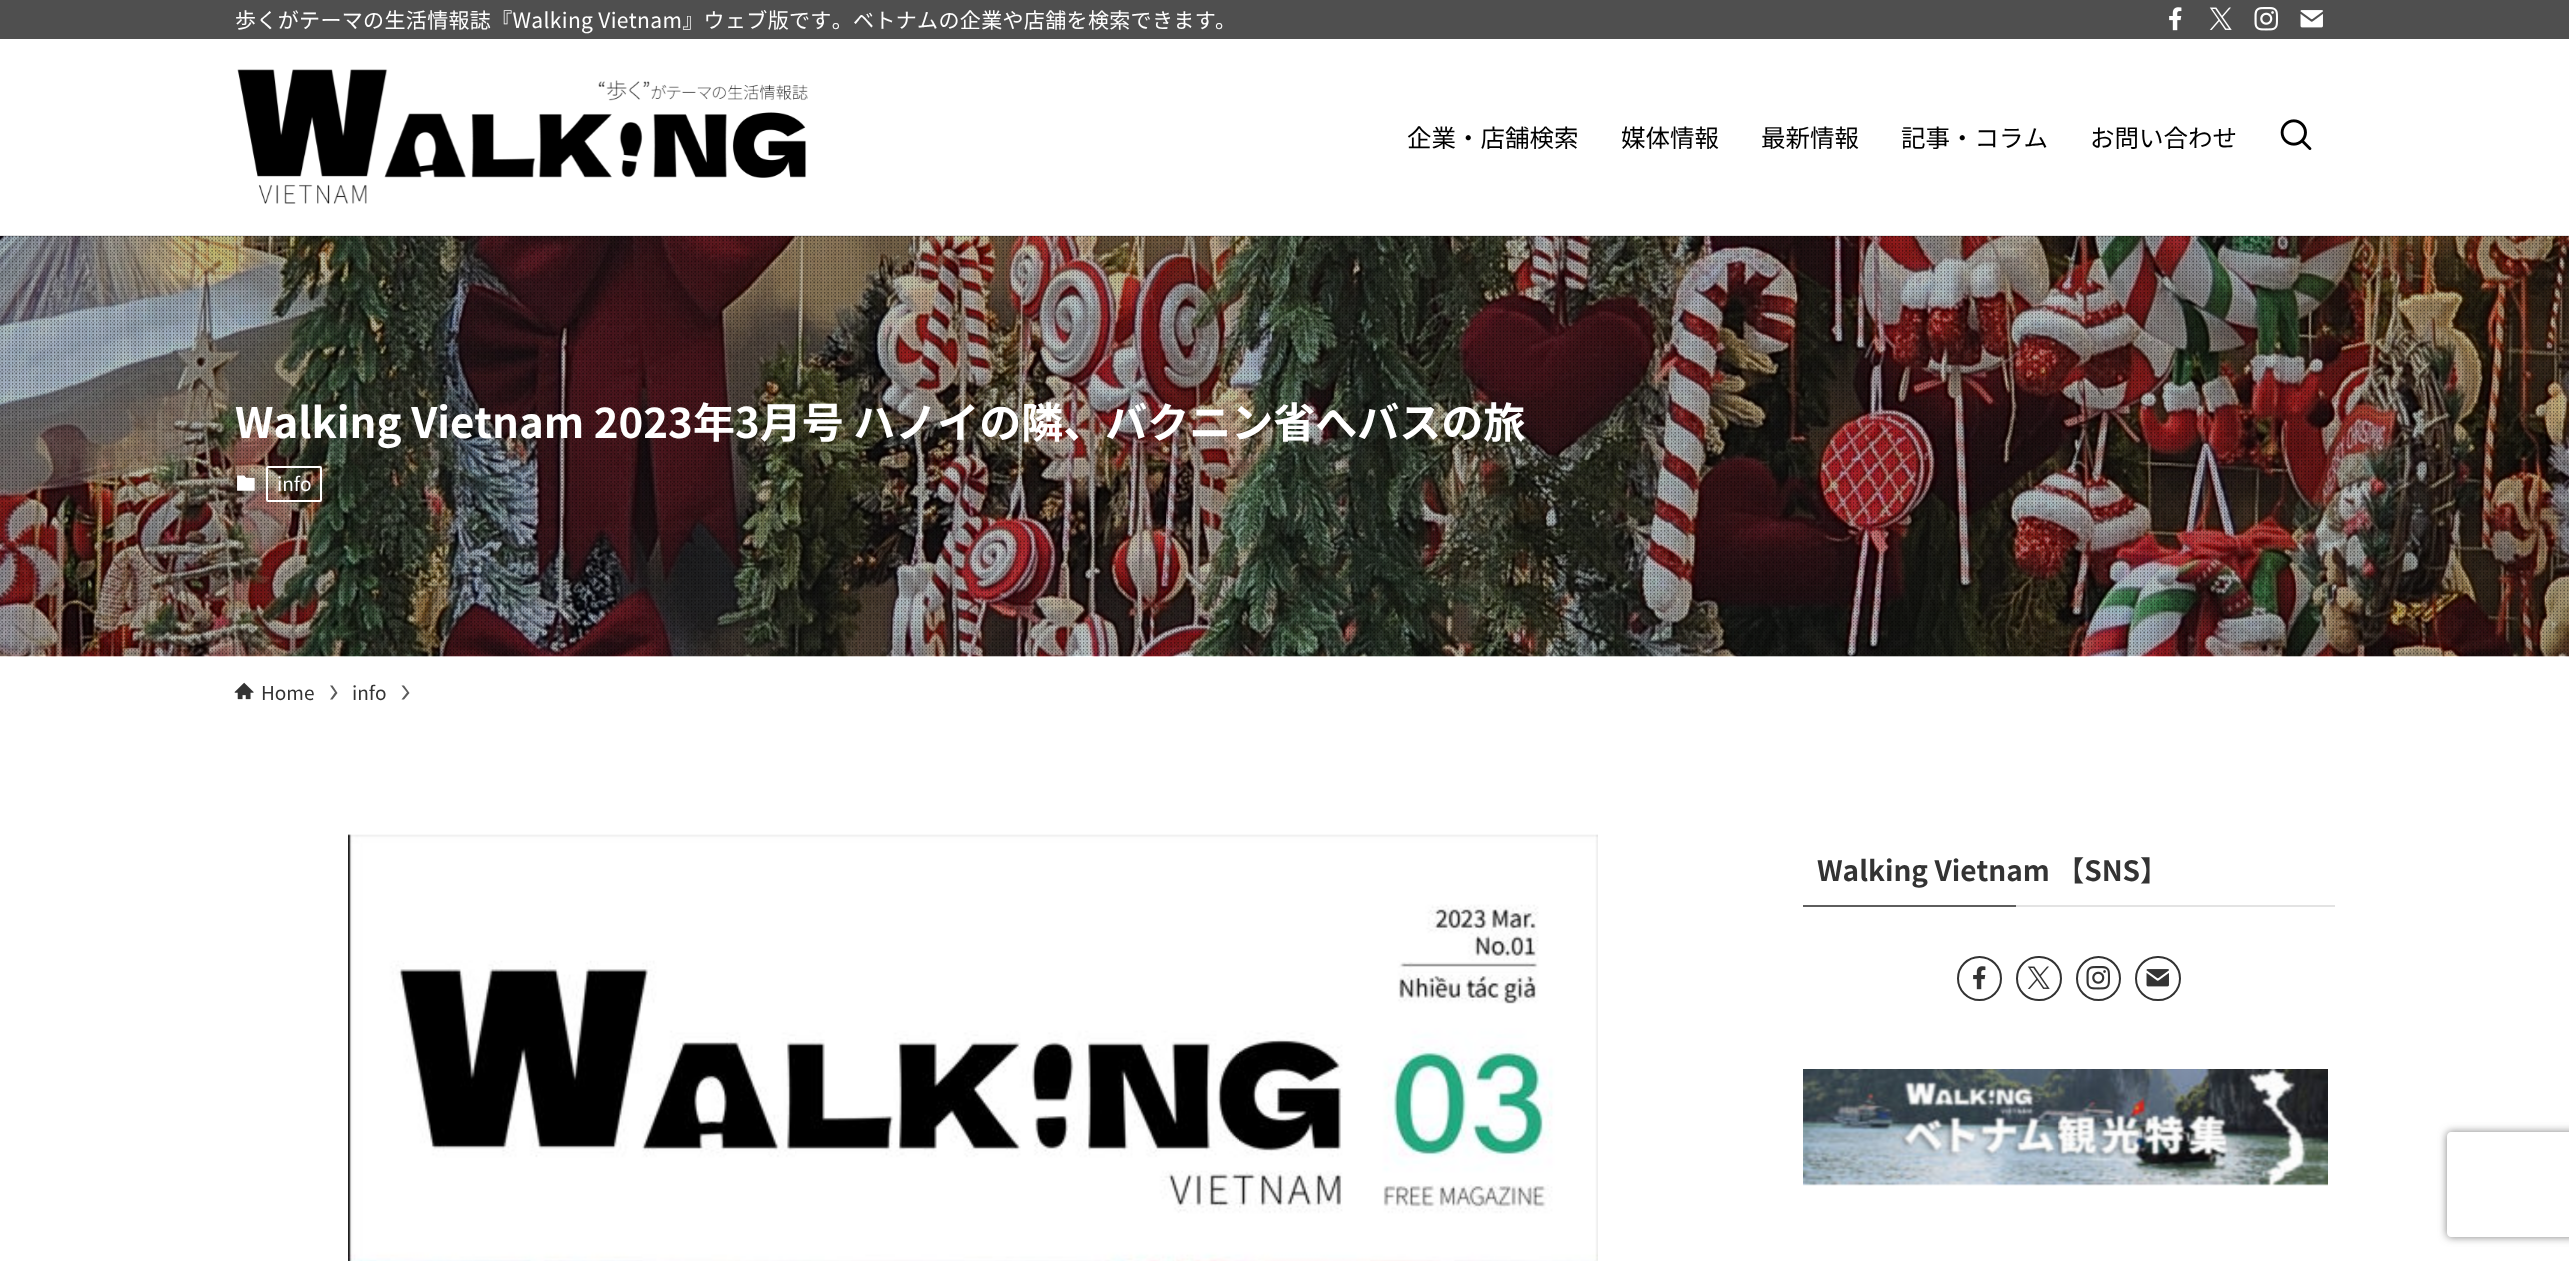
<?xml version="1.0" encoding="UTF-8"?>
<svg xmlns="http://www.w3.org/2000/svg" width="2569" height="1261">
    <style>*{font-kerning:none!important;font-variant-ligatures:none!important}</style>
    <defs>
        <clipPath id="clip1"><path d="M 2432 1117 H 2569 V 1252 H 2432 Z M 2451 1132 H 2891 C 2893 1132 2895 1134 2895 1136 V 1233 C 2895 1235 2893 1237 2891 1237 H 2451 C 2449 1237 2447 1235 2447 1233 V 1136 C 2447 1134 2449 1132 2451 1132 Z" clip-rule="evenodd"/></clipPath>
        <filter id="blur1" x="-50%" y="-200%" width="200%" height="500%"><feGaussianBlur stdDeviation="4.5"/></filter>
    </defs>
    <rect width="100%" height="100%" fill="#FFFFFF"/>
    <image x="0" y="236" width="2569" height="421" href="img_07.png"/>
    <image x="0" y="236" width="2569" height="420" href="img_08.png"/>
    <rect x="0" y="235" width="2569" height="2" fill="#000000" fill-opacity="0.1"/>
    <rect x="0" y="0" width="2569" height="39" fill="#4F4F4F"/>
    <text x="235" y="28" font-family="Noto Sans JP" font-size="21" letter-spacing="0.35" fill="#FFFFFF">歩くがテーマの生活情報誌『Walking Vietnam』ウェブ版です。ベトナムの企業や店舗を検索できます</text>
    <text x="1215" y="28" font-family="Noto Sans JP" font-size="21" letter-spacing="0.35" fill="#FFFFFF">。</text>
    <image x="2169" y="7" width="13" height="24" href="img_01.png"/>
    <image x="2209" y="7" width="23" height="23" href="img_02.png"/>
    <image x="2254" y="7" width="24" height="24" href="img_03.png"/>
    <image x="2300" y="10" width="23" height="18" href="img_04.png"/>
    <image x="237" y="69" width="571" height="135" href="img_05.png"/>
    <text x="1407" y="147" font-family="Noto Sans JP" font-size="24.5" fill="#000000">企業・店舗検索</text>
    <text x="1621" y="147" font-family="Noto Sans JP" font-size="24.5" fill="#000000">媒体情報</text>
    <text x="1761" y="147" font-family="Noto Sans JP" font-size="24.5" fill="#000000">最新情報</text>
    <text x="1901" y="147" font-family="Noto Sans JP" font-size="24.5" fill="#000000">記事・コラム</text>
    <text x="2090" y="147" font-family="Noto Sans JP" font-size="24.5" fill="#000000">お問い合わせ</text>
    <image x="2280" y="119" width="32" height="31" href="img_06.png"/>
    <text x="235" y="438" font-family="Noto Sans JP" font-size="42" font-weight="700" fill="#FFFFFF">Walking Vietnam 2023年3月号 ハノイの隣、バクニン省へバスの旅</text>
    <image x="237" y="475" width="18" height="16" href="img_09.png"/>
    <rect x="267" y="467" width="54" height="34" rx="1" fill="none" stroke="#FFFFFF" stroke-width="2"/>
    <text x="277" y="491" font-family="Noto Sans JP" font-size="19" fill="#FFFFFF">info</text>
    <image x="234" y="682" width="20" height="18" href="img_10.png"/>
    <text x="261" y="700" font-family="Noto Sans JP" font-size="19" fill="#333333">Home</text>
    <path d="M 332.5 685.5 H 330 L 335 692.5 L 330 699.5 H 332.5 L 337.5 693 Z" fill="#5C5C5C"/>
    <text x="352" y="700" font-family="Noto Sans JP" font-size="19" fill="#333333">info</text>
    <path d="M 404 685.5 H 401.5 L 407 692.5 L 401.5 699.5 H 404 L 409.5 693 Z" fill="#5C5C5C"/>
    <image x="348" y="834" width="1250" height="427" href="img_11.png"/>
    <text x="1817" y="881" font-family="Noto Sans JP" font-size="28" font-weight="700" fill="#333333">Walking Vietnam 【SNS】</text>
    <rect x="1803" y="905" width="213" height="2" fill="#5E5E5E"/>
    <rect x="2016" y="905" width="319" height="2" fill="#E3E3E3"/>
    <circle cx="1979.5" cy="978.5" r="21.5" fill="none" stroke="#333333" stroke-width="2"/>
    <image x="1973" y="966" width="13" height="24" href="img_12.png"/>
    <rect x="2017" y="957" width="44" height="43" rx="21.5" fill="none" stroke="#333333" stroke-width="2"/>
    <image x="2027" y="966" width="23" height="23" href="img_13.png"/>
    <circle cx="2098.5" cy="978.5" r="21.5" fill="none" stroke="#333333" stroke-width="2"/>
    <image x="2086" y="966" width="24" height="24" href="img_14.png"/>
    <rect x="2136" y="957" width="44" height="43" rx="21.5" fill="none" stroke="#333333" stroke-width="2"/>
    <image x="2146" y="969" width="23" height="18" href="img_15.png"/>
    <image x="1803" y="1069" width="525" height="117" href="img_16.png"/>
    <g clip-path="url(#clip1)">
        <rect x="2447" y="1132" width="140" height="105" rx="4" fill="#808080" filter="url(#blur1)"/>
    </g>
</svg>
